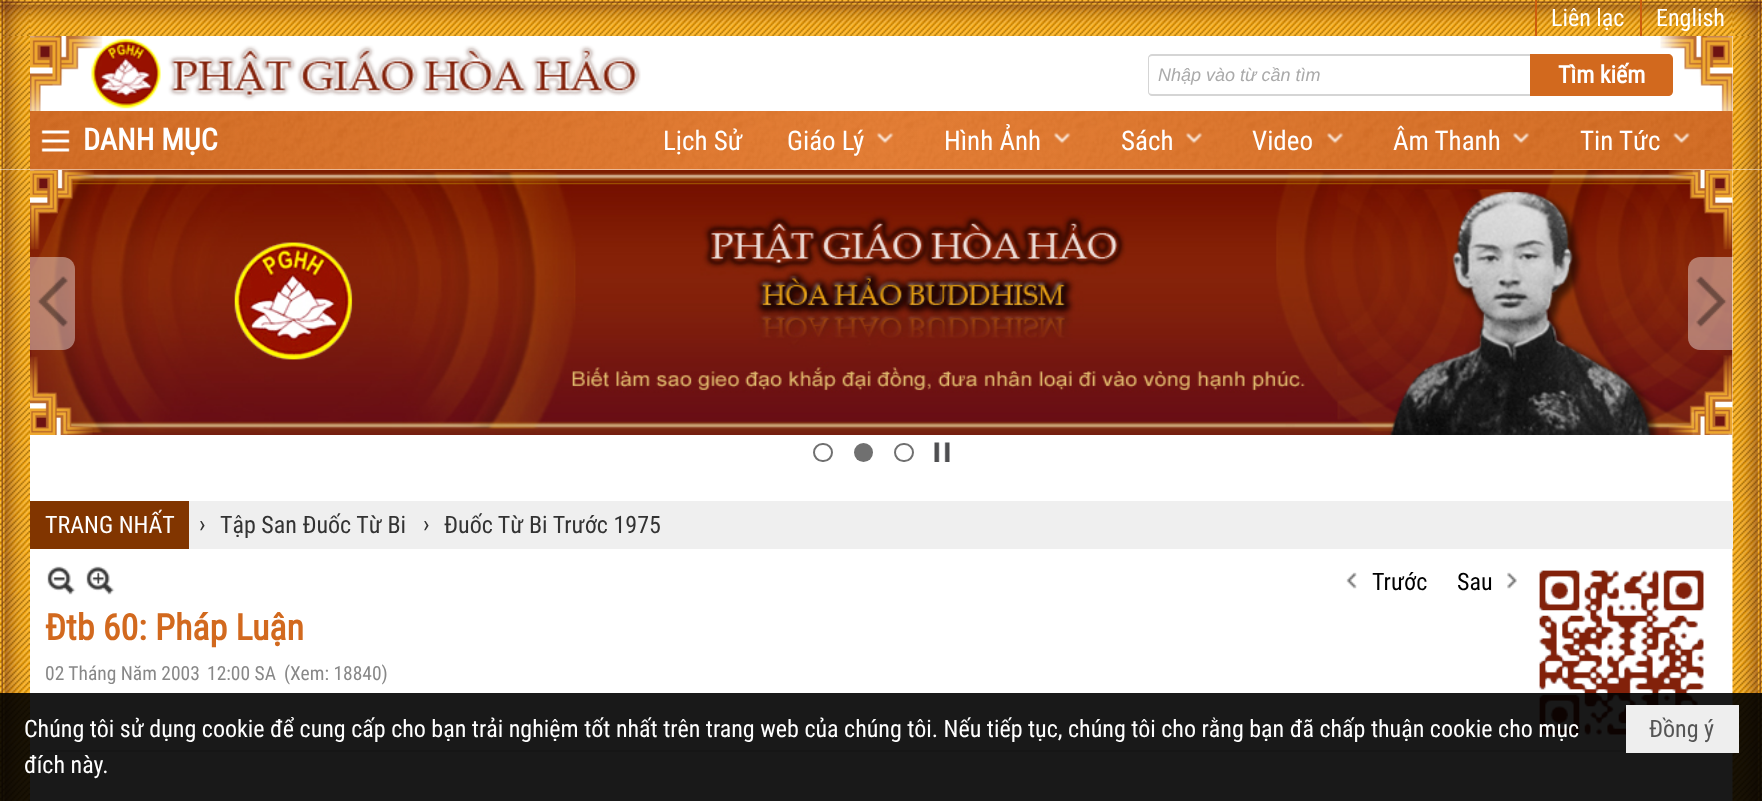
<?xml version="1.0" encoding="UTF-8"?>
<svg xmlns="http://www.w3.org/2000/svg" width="1762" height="801">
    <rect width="100%" height="100%" fill="#FFFFFF"/>
    <image x="0" y="170" width="1762" height="631" href="img_01.png"/>
    <image x="0" y="0" width="1762" height="36" href="img_02.png"/>
    <rect x="1535" y="0" width="2" height="36" fill="#CC5D0E"/>
    <text x="1551" y="26" font-family="Roboto Condensed" font-size="24" fill="#FFFFFF">Liên lạc</text>
    <rect x="1640" y="0" width="2" height="36" fill="#CC5D0E"/>
    <text x="1656" y="26" font-family="Roboto Condensed" font-size="24" fill="#FFFFFF">English</text>
    <image x="0" y="36" width="1762" height="134" href="img_03.png"/>
    <rect x="1732" y="36" width="1" height="75" fill="#FFFFFF"/>
    <image x="30" y="36" width="1703" height="75" href="img_04.png"/>
    <image x="91" y="38" width="550" height="71" href="img_05.png"/>
    <path d="M 1152 54 H 1530 V 96 H 1152 C 1150 96 1148 94 1148 92 V 58 C 1148 56 1150 54 1152 54 Z M 1152 56 H 1530 V 94 H 1152 C 1150 94 1149 93 1149 92 V 58 C 1149 57 1150 56 1152 56 Z" fill="#D5D5D5" fill-rule="evenodd"/>
    <text x="1158" y="81" font-family="Liberation Sans" font-size="18" font-style="italic" fill="#AAAAAA">Nhập vào từ cần tìm</text>
    <path d="M 1530 54 H 1668 C 1671 54 1673 56 1673 59 V 91 C 1673 94 1671 96 1668 96 H 1530 Z" fill="#D2691E"/>
    <text x="1558" y="83" font-family="Roboto Condensed" font-size="24" font-weight="700" fill="#FFFFFF">Tìm kiếm</text>
    <image x="30" y="111" width="1703" height="59" href="img_06.png"/>
    <image x="41" y="130" width="29" height="22" href="img_07.png"/>
    <text x="83" y="150" font-family="Roboto Condensed" font-size="30" font-weight="700" fill="#FFFFFF">DANH MỤC</text>
    <text x="663" y="150" font-family="Roboto Condensed" font-size="27" fill="#FFFFFF">Lịch Sử</text>
    <text x="787" y="150" font-family="Roboto Condensed" font-size="27" fill="#FFFFFF">Giáo Lý</text>
    <image x="876" y="132" width="18" height="12" href="img_08.png"/>
    <text x="944" y="150" font-family="Roboto Condensed" font-size="27" fill="#FFFFFF">Hình Ảnh</text>
    <image x="1053" y="132" width="18" height="12" href="img_09.png"/>
    <text x="1121" y="150" font-family="Roboto Condensed" font-size="27" fill="#FFFFFF">Sách</text>
    <image x="1185" y="132" width="18" height="12" href="img_10.png"/>
    <text x="1252" y="150" font-family="Roboto Condensed" font-size="27" fill="#FFFFFF">Video</text>
    <image x="1326" y="132" width="18" height="12" href="img_11.png"/>
    <text x="1393" y="150" font-family="Roboto Condensed" font-size="27" fill="#FFFFFF">Âm Thanh</text>
    <image x="1512" y="132" width="18" height="12" href="img_12.png"/>
    <text x="1580" y="150" font-family="Roboto Condensed" font-size="27" fill="#FFFFFF">Tin Tức</text>
    <image x="1673" y="132" width="17" height="12" href="img_13.png"/>
    <image x="30" y="170" width="1703" height="265" href="img_14.png"/>
    <path d="M 30 257 H 63 C 69.5 257 75 262.5 75 269 V 338 C 75 344.5 69.5 350 63 350 H 30 Z" fill="#FFFFFF" fill-opacity="0.4"/>
    <image x="37" y="276" width="31" height="51" href="img_15.png"/>
    <path d="M 1700 257 H 1733 V 350 H 1700 C 1693.5 350 1688 344.5 1688 338 V 269 C 1688 262.5 1693.5 257 1700 257 Z" fill="#FFFFFF" fill-opacity="0.4"/>
    <image x="1696" y="276" width="31" height="52" href="img_16.png"/>
    <rect x="814" y="444" width="18" height="17" rx="8.5" fill="none" stroke="#707070" stroke-width="2"/>
    <circle cx="863.5" cy="452.5" r="9.5" fill="#707070"/>
    <rect x="895" y="444" width="18" height="17" rx="8.5" fill="none" stroke="#707070" stroke-width="2"/>
    <image x="934" y="442" width="16" height="20" href="img_17.png"/>
    <rect x="189" y="501" width="1544" height="48" fill="#EFEFEF"/>
    <rect x="30" y="501" width="159" height="48" fill="#813500"/>
    <text x="45" y="533" font-family="Roboto Condensed" font-size="24" fill="#FFFFFF">TRANG NHẤT</text>
    <text x="199" y="532" font-family="Roboto Condensed" font-size="24" fill="#333333">›</text>
    <text x="220" y="533" font-family="Roboto Condensed" font-size="24" fill="#333333">Tập San Đuốc Từ Bi</text>
    <text x="423" y="532" font-family="Roboto Condensed" font-size="24" fill="#333333">›</text>
    <text x="444" y="533" font-family="Roboto Condensed" font-size="24" fill="#333333">Đuốc Từ Bi Trước 1975</text>
    <rect x="45" y="750" width="1581" height="2" fill="#E1E1E1"/>
    <image x="47" y="566" width="29" height="29" href="img_18.png"/>
    <image x="86" y="566" width="29" height="29" href="img_19.png"/>
    <image x="1346" y="572" width="11" height="17" href="img_20.png"/>
    <text x="1372" y="590" font-family="Roboto Condensed" font-size="24" fill="#000000">Trước</text>
    <image x="1507" y="572" width="10" height="17" href="img_21.png"/>
    <text x="1457" y="590" font-family="Roboto Condensed" font-size="24" fill="#000000">Sau</text>
    <image x="1539" y="570" width="165" height="165" href="img_22.png"/>
    <text x="45" y="640" font-family="Roboto Condensed" font-size="36" font-weight="700" fill="#D2691E">Đtb 60: Pháp Luận</text>
    <text x="45" y="680" font-family="Roboto Condensed" font-size="19.5" fill="#888888">02 Tháng Năm 2003</text>
    <text x="207" y="680" font-family="Roboto Condensed" font-size="19.5" fill="#888888">12:00 SA</text>
    <text x="284" y="680" font-family="Roboto Condensed" font-size="19.5" fill="#888888">(Xem: 18840)</text>
    <rect x="0" y="693" width="1762" height="108" fill="#000000" fill-opacity="0.9"/>
    <text font-family="Roboto Condensed" font-size="24" fill="#FFFFFF">
        <tspan x="24" y="737">Chúng tôi sử dụng cookie để cung cấp cho bạn trải nghiệm tốt nhất trên trang web của chúng tôi. Nếu tiếp tục, chúng tôi cho rằng bạn đã chấp thuận cookie cho mục</tspan>
        <tspan x="24" y="773">đích này.</tspan>
    </text>
    <rect x="1626" y="705" width="113" height="48" fill="#EEEEEE"/>
    <text x="1649" y="737" font-family="Roboto Condensed" font-size="24" fill="#555555">Đồng ý</text>
</svg>
